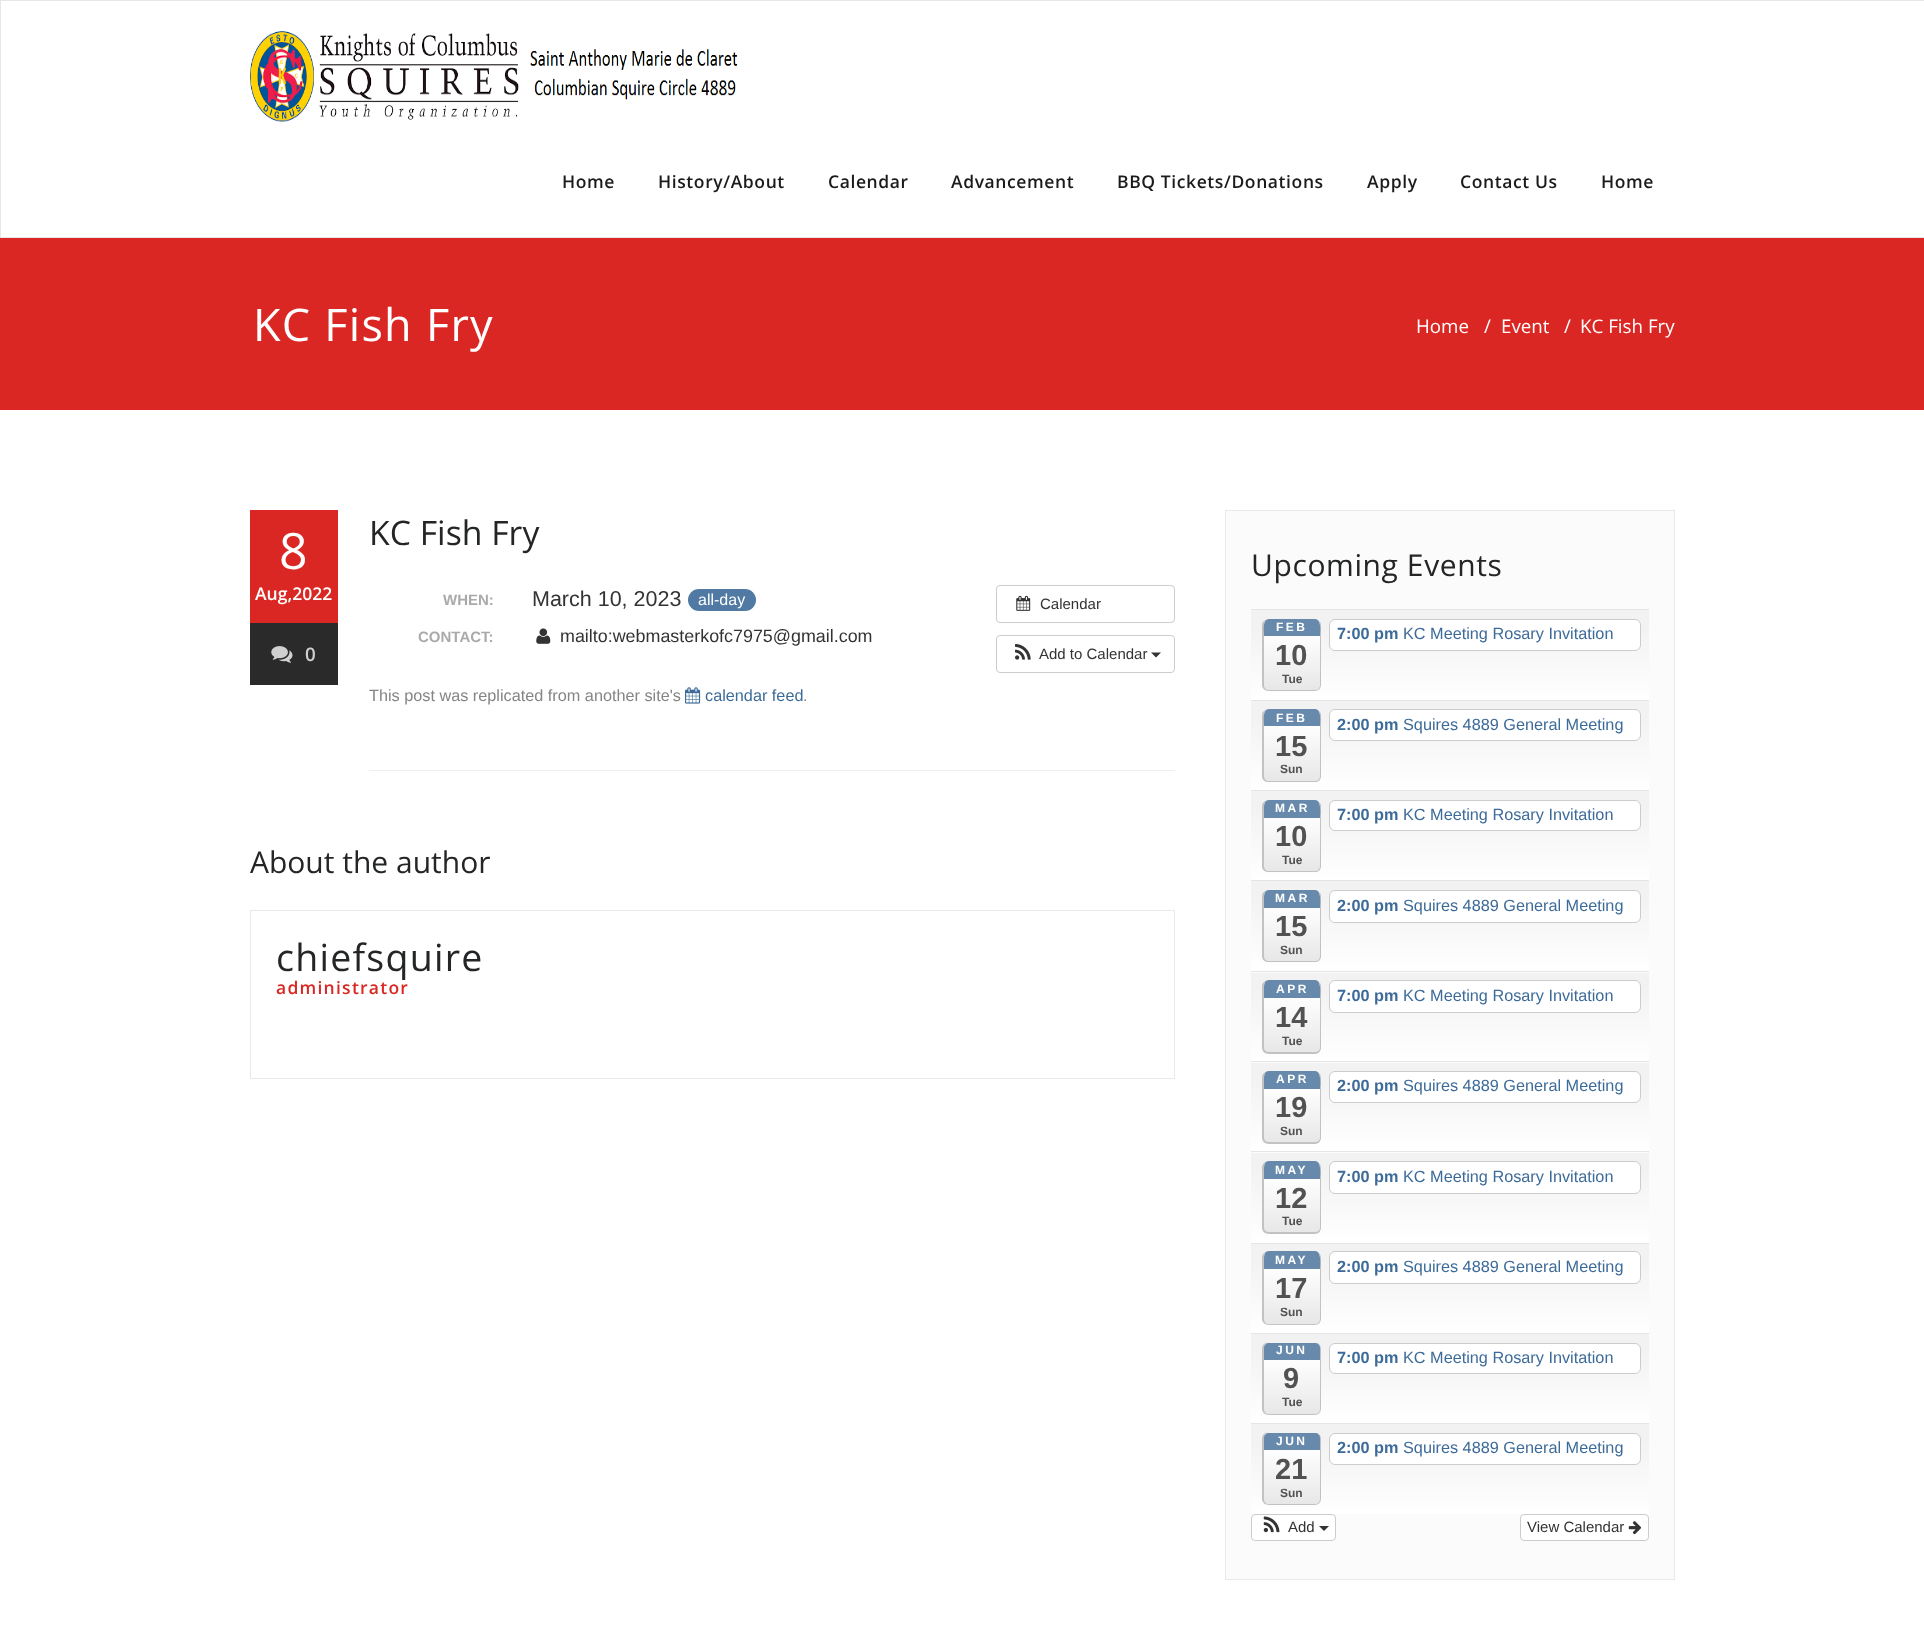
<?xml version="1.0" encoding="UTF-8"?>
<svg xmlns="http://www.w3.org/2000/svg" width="1924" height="1643">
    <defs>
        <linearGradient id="g1" gradientUnits="userSpaceOnUse" x1="1450" y1="610" x2="1450" y2="700"><stop offset="0" stop-color="#F2F2F2"/><stop offset="0.18" stop-color="#F2F2F2"/><stop offset="1" stop-color="#FFFFFF"/></linearGradient>
        <clipPath id="clip1"><rect x="1263" y="619" width="58" height="72" rx="6"/></clipPath>
        <linearGradient id="g2" gradientUnits="userSpaceOnUse" x1="1292" y1="619" x2="1292" y2="690"><stop offset="0" stop-color="#FFFFFF"/><stop offset="0.21" stop-color="#FFFFFF"/><stop offset="1" stop-color="#E7E7E7"/></linearGradient>
        <linearGradient id="g3" gradientUnits="userSpaceOnUse" x1="1450" y1="701" x2="1450" y2="790"><stop offset="0" stop-color="#F2F2F2"/><stop offset="0.18" stop-color="#F2F2F2"/><stop offset="1" stop-color="#FFFFFF"/></linearGradient>
        <clipPath id="clip2"><rect x="1263" y="709" width="58" height="74" rx="6"/></clipPath>
        <linearGradient id="g4" gradientUnits="userSpaceOnUse" x1="1292" y1="709" x2="1292" y2="781"><stop offset="0" stop-color="#FFFFFF"/><stop offset="0.2" stop-color="#FFFFFF"/><stop offset="1" stop-color="#E7E7E7"/></linearGradient>
        <linearGradient id="g5" gradientUnits="userSpaceOnUse" x1="1450" y1="791" x2="1450" y2="880"><stop offset="0" stop-color="#F2F2F2"/><stop offset="0.18" stop-color="#F2F2F2"/><stop offset="1" stop-color="#FFFFFF"/></linearGradient>
        <clipPath id="clip3"><rect x="1263" y="800" width="58" height="73" rx="6"/></clipPath>
        <linearGradient id="g6" gradientUnits="userSpaceOnUse" x1="1292" y1="800" x2="1292" y2="871"><stop offset="0" stop-color="#FFFFFF"/><stop offset="0.21" stop-color="#FFFFFF"/><stop offset="1" stop-color="#E7E7E7"/></linearGradient>
        <linearGradient id="g7" gradientUnits="userSpaceOnUse" x1="1450" y1="881" x2="1450" y2="971"><stop offset="0" stop-color="#F2F2F2"/><stop offset="0.18" stop-color="#F2F2F2"/><stop offset="1" stop-color="#FFFFFF"/></linearGradient>
        <clipPath id="clip4"><rect x="1263" y="890" width="58" height="73" rx="6"/></clipPath>
        <linearGradient id="g8" gradientUnits="userSpaceOnUse" x1="1292" y1="890" x2="1292" y2="961"><stop offset="0" stop-color="#FFFFFF"/><stop offset="0.21" stop-color="#FFFFFF"/><stop offset="1" stop-color="#E7E7E7"/></linearGradient>
        <linearGradient id="g9" gradientUnits="userSpaceOnUse" x1="1450" y1="973" x2="1450" y2="1061"><stop offset="0" stop-color="#F2F2F2"/><stop offset="0.18" stop-color="#F2F2F2"/><stop offset="1" stop-color="#FFFFFF"/></linearGradient>
        <clipPath id="clip5"><rect x="1263" y="980" width="58" height="74" rx="6"/></clipPath>
        <linearGradient id="g10" gradientUnits="userSpaceOnUse" x1="1292" y1="980" x2="1292" y2="1053"><stop offset="0" stop-color="#FFFFFF"/><stop offset="0.2" stop-color="#FFFFFF"/><stop offset="1" stop-color="#E7E7E7"/></linearGradient>
        <linearGradient id="g11" gradientUnits="userSpaceOnUse" x1="1450" y1="1063" x2="1450" y2="1151"><stop offset="0" stop-color="#F2F2F2"/><stop offset="0.18" stop-color="#F2F2F2"/><stop offset="1" stop-color="#FFFFFF"/></linearGradient>
        <clipPath id="clip6"><rect x="1263" y="1071" width="58" height="73" rx="6"/></clipPath>
        <linearGradient id="g12" gradientUnits="userSpaceOnUse" x1="1292" y1="1071" x2="1292" y2="1143"><stop offset="0" stop-color="#FFFFFF"/><stop offset="0.21" stop-color="#FFFFFF"/><stop offset="1" stop-color="#E7E7E7"/></linearGradient>
        <linearGradient id="g13" gradientUnits="userSpaceOnUse" x1="1450" y1="1153" x2="1450" y2="1243"><stop offset="0" stop-color="#F2F2F2"/><stop offset="0.18" stop-color="#F2F2F2"/><stop offset="1" stop-color="#FFFFFF"/></linearGradient>
        <clipPath id="clip7"><rect x="1263" y="1161" width="58" height="73" rx="6"/></clipPath>
        <linearGradient id="g14" gradientUnits="userSpaceOnUse" x1="1292" y1="1161" x2="1292" y2="1233"><stop offset="0" stop-color="#FFFFFF"/><stop offset="0.21" stop-color="#FFFFFF"/><stop offset="1" stop-color="#E7E7E7"/></linearGradient>
        <linearGradient id="g15" gradientUnits="userSpaceOnUse" x1="1450" y1="1244" x2="1450" y2="1333"><stop offset="0" stop-color="#F2F2F2"/><stop offset="0.18" stop-color="#F2F2F2"/><stop offset="1" stop-color="#FFFFFF"/></linearGradient>
        <clipPath id="clip8"><rect x="1263" y="1251" width="58" height="74" rx="6"/></clipPath>
        <linearGradient id="g16" gradientUnits="userSpaceOnUse" x1="1292" y1="1251" x2="1292" y2="1324"><stop offset="0" stop-color="#FFFFFF"/><stop offset="0.2" stop-color="#FFFFFF"/><stop offset="1" stop-color="#E7E7E7"/></linearGradient>
        <linearGradient id="g17" gradientUnits="userSpaceOnUse" x1="1450" y1="1334" x2="1450" y2="1423"><stop offset="0" stop-color="#F2F2F2"/><stop offset="0.18" stop-color="#F2F2F2"/><stop offset="1" stop-color="#FFFFFF"/></linearGradient>
        <clipPath id="clip9"><rect x="1263" y="1343" width="58" height="72" rx="6"/></clipPath>
        <linearGradient id="g18" gradientUnits="userSpaceOnUse" x1="1292" y1="1343" x2="1292" y2="1414"><stop offset="0" stop-color="#FFFFFF"/><stop offset="0.21" stop-color="#FFFFFF"/><stop offset="1" stop-color="#E7E7E7"/></linearGradient>
        <linearGradient id="g19" gradientUnits="userSpaceOnUse" x1="1450" y1="1424" x2="1450" y2="1514"><stop offset="0" stop-color="#F2F2F2"/><stop offset="0.18" stop-color="#F2F2F2"/><stop offset="1" stop-color="#FFFFFF"/></linearGradient>
        <clipPath id="clip10"><rect x="1263" y="1433" width="58" height="72" rx="6"/></clipPath>
        <linearGradient id="g20" gradientUnits="userSpaceOnUse" x1="1292" y1="1433" x2="1292" y2="1504"><stop offset="0" stop-color="#FFFFFF"/><stop offset="0.21" stop-color="#FFFFFF"/><stop offset="1" stop-color="#E7E7E7"/></linearGradient>
    </defs>
    <rect width="100%" height="100%" fill="#FFFFFF"/>
    <rect x="0.5" y="0.5" width="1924" height="237" fill="none" stroke="#E7E7E7"/>
    <image x="250" y="31" width="488" height="91" href="img_01.png"/>
    <text x="562" y="188" font-family="Open Sans" font-size="17.5" font-weight="600" letter-spacing="0.6" fill="#1B1B1B">Home</text>
    <text x="658" y="188" font-family="Open Sans" font-size="17.5" font-weight="600" letter-spacing="0.6" fill="#1B1B1B">History/About</text>
    <text x="828" y="188" font-family="Open Sans" font-size="17.5" font-weight="600" letter-spacing="0.6" fill="#1B1B1B">Calendar</text>
    <text x="951" y="188" font-family="Open Sans" font-size="17.5" font-weight="600" letter-spacing="0.6" fill="#1B1B1B">Advancement</text>
    <text x="1117" y="188" font-family="Open Sans" font-size="17.5" font-weight="600" letter-spacing="0.6" fill="#1B1B1B">BBQ Tickets/Donations</text>
    <text x="1367" y="188" font-family="Open Sans" font-size="17.5" font-weight="600" letter-spacing="0.6" fill="#1B1B1B">Apply</text>
    <text x="1460" y="188" font-family="Open Sans" font-size="17.5" font-weight="600" letter-spacing="0.6" fill="#1B1B1B">Contact Us</text>
    <text x="1601" y="188" font-family="Open Sans" font-size="17.5" font-weight="600" letter-spacing="0.6" fill="#1B1B1B">Home</text>
    <rect x="0" y="238" width="1924" height="172" fill="#DB2723"/>
    <text x="253" y="341" font-family="Open Sans" font-size="45" letter-spacing="1.25" fill="#FFFFFF">KC Fish Fry</text>
    <text x="1416" y="333" font-family="Open Sans" font-size="18.75" fill="#FFFFFF">Home</text>
    <text x="1484" y="333" font-family="Open Sans" font-size="18.75" fill="#FFFFFF">/</text>
    <text x="1501" y="333" font-family="Open Sans" font-size="18.75" fill="#FFFFFF">Event</text>
    <text x="1564" y="333" font-family="Open Sans" font-size="18.75" fill="#FFFFFF">/</text>
    <text x="1580" y="333" font-family="Open Sans" font-size="18.75" fill="#FFFFFF">KC Fish Fry</text>
    <rect x="250" y="510" width="88" height="113" fill="#DB2723"/>
    <text x="279" y="569" font-family="Open Sans" font-size="50" fill="#FFFFFF">8</text>
    <text x="255" y="600" font-family="Open Sans" font-size="17.5" font-weight="600" fill="#FFFFFF">Aug,2022</text>
    <rect x="250" y="623" width="88" height="62" fill="#2A2A2A"/>
    <image x="271" y="646" width="22" height="17" href="img_02.png"/>
    <text x="305" y="661" font-family="Open Sans" font-size="18.75" font-weight="600" fill="#D0D0D0">0</text>
    <rect x="369" y="770" width="806" height="1" fill="#EEEEEE"/>
    <text x="369" y="545" font-family="Open Sans" font-size="33.75" fill="#242526">KC Fish Fry</text>
    <text x="443" y="605" font-family="Liberation Sans" font-size="15" font-weight="700" fill="#AAAAAA">WHEN:</text>
    <text x="532" y="606" font-family="Liberation Sans" font-size="21.5" fill="#333333">March 10, 2023</text>
    <rect x="688" y="589" width="68" height="22" rx="11" fill="#507AA3"/>
    <text x="698" y="605" font-family="Liberation Sans" font-size="16" fill="#FFFFFF">all-day</text>
    <text x="418" y="642" font-family="Liberation Sans" font-size="15" font-weight="700" fill="#AAAAAA">CONTACT:</text>
    <image x="536" y="628" width="15" height="16" href="img_03.png"/>
    <text x="560" y="642" font-family="Liberation Sans" font-size="17.9" fill="#333333">mailto:webmasterkofc7975@gmail.com</text>
    <rect x="996.5" y="585.5" width="178" height="37" rx="3.5" fill="none" stroke="#CCCCCC"/>
    <image x="1016" y="595" width="15" height="16" href="img_04.png"/>
    <text x="1040" y="609" font-family="Liberation Sans" font-size="15" fill="#333333">Calendar</text>
    <rect x="996.5" y="635.5" width="178" height="37" rx="3.5" fill="none" stroke="#CCCCCC"/>
    <image x="1015" y="644" width="16" height="16" href="img_05.png"/>
    <text x="1039" y="659" font-family="Liberation Sans" font-size="15" fill="#333333">Add to Calendar</text>
    <path d="M 1151 652.5 H 1161 L 1156 657.5 Z" fill="#333333"/>
    <text x="369" y="701" font-family="Liberation Sans" font-size="16.25" fill="#858585">This post was replicated from another site's</text>
    <image x="685" y="687" width="16" height="17" href="img_06.png"/>
    <text x="705" y="701" font-family="Liberation Sans" font-size="16.25" fill="#3D6B99">calendar feed</text>
    <text x="803" y="701" font-family="Liberation Sans" font-size="16.25" fill="#858585">.</text>
    <text x="250" y="873" font-family="Open Sans" font-size="30" fill="#242526">About the author</text>
    <rect x="250.5" y="910.5" width="924" height="168" fill="none" stroke="#E9E9E9"/>
    <text x="276" y="971" font-family="Open Sans" font-size="37.5" letter-spacing="1.25" fill="#242526">chiefsquire</text>
    <text x="276" y="994" font-family="Open Sans" font-size="17.5" font-weight="600" letter-spacing="1.25" fill="#DB2723">administrator</text>
    <rect x="1225.5" y="510.5" width="449" height="1069" fill="#FBFBFB" stroke="#E9E9E9"/>
    <text x="1251" y="576" font-family="Open Sans" font-size="30" letter-spacing="0.6" fill="#242526">Upcoming Events</text>
    <rect x="1251" y="610" width="398" height="90" fill="url(#g1)"/>
    <rect x="1251" y="609" width="398" height="1" fill="#E5E5E5"/>
    <g clip-path="url(#clip1)">
        <rect x="1264" y="619" width="56" height="71" fill="url(#g2)"/>
    </g>
    <path d="M 1269 619 H 1315 C 1318 619 1321 622 1321 625 V 685 C 1321 688 1318 691 1315 691 H 1269 C 1265 691 1262 688 1262 685 V 625 C 1262 622 1265 619 1269 619 Z M 1269 619 H 1315 C 1318 619 1320 622 1320 625 V 685 C 1320 688 1318 690 1315 690 H 1269 C 1266 690 1264 688 1264 685 V 625 C 1264 622 1266 619 1269 619 Z" fill="#C2C2C2" fill-rule="evenodd"/>
    <path d="M 1269 619 C 1262 619 1264 632 1264 636 H 1320 C 1320 632 1322 619 1315 619 Z" fill="#6689AC"/>
    <text x="1276" y="631" font-family="Liberation Sans" font-size="12" font-weight="700" letter-spacing="2.5" fill="#FFFFFF">FEB</text>
    <text x="1275" y="665" font-family="Liberation Sans" font-size="29" font-weight="700" fill="#525252">10</text>
    <text x="1282" y="683" font-family="Liberation Sans" font-size="12" font-weight="700" fill="#525252">Tue</text>
    <rect x="1329.5" y="619.5" width="311" height="31" rx="5.5" fill="#FFFFFF" stroke="#CCCCCC"/>
    <text x="1337" y="639" font-family="Liberation Sans" font-size="16.25" font-weight="700" fill="#3D6B99">7:00 pm</text>
    <text x="1403" y="639" font-family="Liberation Sans" font-size="16.25" fill="#3D6B99">KC Meeting Rosary Invitation</text>
    <rect x="1251" y="701" width="398" height="89" fill="url(#g3)"/>
    <rect x="1251" y="700" width="398" height="1" fill="#E5E5E5"/>
    <g clip-path="url(#clip2)">
        <rect x="1264" y="709" width="56" height="72" fill="url(#g4)"/>
    </g>
    <path d="M 1269 709 H 1315 C 1318 709 1321 712 1321 715 V 776 C 1321 780 1318 782 1315 782 H 1269 C 1265 782 1262 780 1262 776 V 715 C 1262 712 1265 709 1269 709 Z M 1269 709 H 1315 C 1318 709 1320 712 1320 715 V 776 C 1320 779 1318 781 1315 781 H 1269 C 1266 781 1264 779 1264 776 V 715 C 1264 712 1266 709 1269 709 Z" fill="#C2C2C2" fill-rule="evenodd"/>
    <path d="M 1269 709 C 1262 709 1264 722 1264 726 H 1320 C 1320 722 1322 709 1315 709 Z" fill="#6689AC"/>
    <text x="1276" y="722" font-family="Liberation Sans" font-size="12" font-weight="700" letter-spacing="2.5" fill="#FFFFFF">FEB</text>
    <text x="1275" y="756" font-family="Liberation Sans" font-size="29" font-weight="700" fill="#525252">15</text>
    <text x="1280" y="773" font-family="Liberation Sans" font-size="12" font-weight="700" fill="#525252">Sun</text>
    <rect x="1329.5" y="709.5" width="311" height="31" rx="5.5" fill="#FFFFFF" stroke="#CCCCCC"/>
    <text x="1337" y="730" font-family="Liberation Sans" font-size="16.25" font-weight="700" fill="#3D6B99">2:00 pm</text>
    <text x="1403" y="730" font-family="Liberation Sans" font-size="16.25" fill="#3D6B99">Squires 4889 General Meeting</text>
    <rect x="1251" y="791" width="398" height="89" fill="url(#g5)"/>
    <rect x="1251" y="790" width="398" height="1" fill="#E5E5E5"/>
    <g clip-path="url(#clip3)">
        <rect x="1264" y="800" width="56" height="71" fill="url(#g6)"/>
    </g>
    <path d="M 1269 800 H 1315 C 1318 800 1321 803 1321 806 V 866 C 1321 870 1318 872 1315 872 H 1269 C 1265 872 1262 870 1262 866 V 806 C 1262 803 1265 800 1269 800 Z M 1269 800 H 1315 C 1318 800 1320 803 1320 806 V 866 C 1320 869 1318 871 1315 871 H 1269 C 1266 871 1264 869 1264 866 V 806 C 1264 803 1266 800 1269 800 Z" fill="#C2C2C2" fill-rule="evenodd"/>
    <path d="M 1269 800 C 1264 800 1264 806 1264 809 V 818 H 1320 C 1320 814 1322 800 1315 800 Z" fill="#6689AC"/>
    <text x="1275" y="812" font-family="Liberation Sans" font-size="12" font-weight="700" letter-spacing="2.5" fill="#FFFFFF">MAR</text>
    <text x="1275" y="846" font-family="Liberation Sans" font-size="29" font-weight="700" fill="#525252">10</text>
    <text x="1282" y="864" font-family="Liberation Sans" font-size="12" font-weight="700" fill="#525252">Tue</text>
    <rect x="1329.5" y="800.5" width="311" height="30" rx="5.5" fill="#FFFFFF" stroke="#CCCCCC"/>
    <text x="1337" y="820" font-family="Liberation Sans" font-size="16.25" font-weight="700" fill="#3D6B99">7:00 pm</text>
    <text x="1403" y="820" font-family="Liberation Sans" font-size="16.25" fill="#3D6B99">KC Meeting Rosary Invitation</text>
    <rect x="1251" y="881" width="398" height="90" fill="url(#g7)"/>
    <rect x="1251" y="880" width="398" height="1" fill="#E5E5E5"/>
    <g clip-path="url(#clip4)">
        <rect x="1264" y="890" width="56" height="71" fill="url(#g8)"/>
    </g>
    <path d="M 1269 890 H 1315 C 1318 890 1321 893 1321 896 V 956 C 1321 960 1318 962 1315 962 H 1269 C 1265 962 1262 960 1262 956 V 896 C 1262 893 1265 890 1269 890 Z M 1269 890 H 1315 C 1318 890 1320 893 1320 896 V 956 C 1320 959 1318 961 1315 961 H 1269 C 1266 961 1264 959 1264 956 V 896 C 1264 893 1266 890 1269 890 Z" fill="#C2C2C2" fill-rule="evenodd"/>
    <path d="M 1269 890 C 1264 890 1264 896 1264 899 V 908 H 1320 C 1320 904 1322 890 1315 890 Z" fill="#6689AC"/>
    <text x="1275" y="902" font-family="Liberation Sans" font-size="12" font-weight="700" letter-spacing="2.5" fill="#FFFFFF">MAR</text>
    <text x="1275" y="936" font-family="Liberation Sans" font-size="29" font-weight="700" fill="#525252">15</text>
    <text x="1280" y="954" font-family="Liberation Sans" font-size="12" font-weight="700" fill="#525252">Sun</text>
    <rect x="1329.5" y="890.5" width="311" height="32" rx="5.5" fill="#FFFFFF" stroke="#CCCCCC"/>
    <text x="1337" y="911" font-family="Liberation Sans" font-size="16.25" font-weight="700" fill="#3D6B99">2:00 pm</text>
    <text x="1403" y="911" font-family="Liberation Sans" font-size="16.25" fill="#3D6B99">Squires 4889 General Meeting</text>
    <rect x="1251" y="973" width="398" height="88" fill="url(#g9)"/>
    <rect x="1251" y="971" width="398" height="1" fill="#E5E5E5"/>
    <g clip-path="url(#clip5)">
        <rect x="1264" y="980" width="56" height="73" fill="url(#g10)"/>
    </g>
    <path d="M 1269 980 H 1315 C 1318 980 1321 983 1321 986 V 1048 C 1321 1051 1318 1054 1315 1054 H 1269 C 1265 1054 1262 1051 1262 1048 V 986 C 1262 983 1265 980 1269 980 Z M 1269 980 H 1315 C 1318 980 1320 983 1320 986 V 1048 C 1320 1050 1318 1052 1315 1052 H 1269 C 1266 1052 1264 1050 1264 1048 V 986 C 1264 983 1266 980 1269 980 Z" fill="#C2C2C2" fill-rule="evenodd"/>
    <path d="M 1269 980 C 1264 980 1264 986 1264 989 V 998 H 1320 C 1320 994 1322 980 1315 980 Z" fill="#6689AC"/>
    <text x="1276" y="993" font-family="Liberation Sans" font-size="12" font-weight="700" letter-spacing="2.5" fill="#FFFFFF">APR</text>
    <text x="1275" y="1027" font-family="Liberation Sans" font-size="29" font-weight="700" fill="#525252">14</text>
    <text x="1282" y="1045" font-family="Liberation Sans" font-size="12" font-weight="700" fill="#525252">Tue</text>
    <rect x="1329.5" y="980.5" width="311" height="32" rx="5.5" fill="#FFFFFF" stroke="#CCCCCC"/>
    <text x="1337" y="1001" font-family="Liberation Sans" font-size="16.25" font-weight="700" fill="#3D6B99">7:00 pm</text>
    <text x="1403" y="1001" font-family="Liberation Sans" font-size="16.25" fill="#3D6B99">KC Meeting Rosary Invitation</text>
    <rect x="1251" y="1063" width="398" height="88" fill="url(#g11)"/>
    <rect x="1251" y="1061" width="398" height="1" fill="#E5E5E5"/>
    <g clip-path="url(#clip6)">
        <rect x="1264" y="1071" width="56" height="72" fill="url(#g12)"/>
    </g>
    <path d="M 1269 1071 H 1315 C 1318 1071 1321 1074 1321 1078 V 1138 C 1321 1141 1318 1144 1315 1144 H 1269 C 1265 1144 1262 1141 1262 1138 V 1078 C 1262 1074 1265 1071 1269 1071 Z M 1269 1071 H 1315 C 1318 1071 1320 1074 1320 1078 V 1138 C 1320 1140 1318 1142 1315 1142 H 1269 C 1266 1142 1264 1140 1264 1138 V 1078 C 1264 1074 1266 1071 1269 1071 Z" fill="#C2C2C2" fill-rule="evenodd"/>
    <path d="M 1269 1071 C 1264 1071 1264 1077 1264 1080 V 1089 H 1320 C 1320 1085 1322 1071 1315 1071 Z" fill="#6689AC"/>
    <text x="1276" y="1083" font-family="Liberation Sans" font-size="12" font-weight="700" letter-spacing="2.5" fill="#FFFFFF">APR</text>
    <text x="1275" y="1117" font-family="Liberation Sans" font-size="29" font-weight="700" fill="#525252">19</text>
    <text x="1280" y="1135" font-family="Liberation Sans" font-size="12" font-weight="700" fill="#525252">Sun</text>
    <rect x="1329.5" y="1071.5" width="311" height="31" rx="5.5" fill="#FFFFFF" stroke="#CCCCCC"/>
    <text x="1337" y="1091" font-family="Liberation Sans" font-size="16.25" font-weight="700" fill="#3D6B99">2:00 pm</text>
    <text x="1403" y="1091" font-family="Liberation Sans" font-size="16.25" fill="#3D6B99">Squires 4889 General Meeting</text>
    <rect x="1251" y="1153" width="398" height="90" fill="url(#g13)"/>
    <rect x="1251" y="1151" width="398" height="1" fill="#E5E5E5"/>
    <g clip-path="url(#clip7)">
        <rect x="1264" y="1161" width="56" height="72" fill="url(#g14)"/>
    </g>
    <path d="M 1269 1161 H 1315 C 1318 1161 1321 1164 1321 1168 V 1228 C 1321 1231 1318 1234 1315 1234 H 1269 C 1265 1234 1262 1231 1262 1228 V 1168 C 1262 1164 1265 1161 1269 1161 Z M 1269 1161 H 1315 C 1318 1161 1320 1164 1320 1168 V 1228 C 1320 1230 1318 1232 1315 1232 H 1269 C 1266 1232 1264 1230 1264 1228 V 1168 C 1264 1164 1266 1161 1269 1161 Z" fill="#C2C2C2" fill-rule="evenodd"/>
    <path d="M 1269 1161 C 1264 1161 1264 1167 1264 1170 V 1179 H 1320 C 1320 1175 1322 1161 1315 1161 Z" fill="#6689AC"/>
    <text x="1275" y="1174" font-family="Liberation Sans" font-size="12" font-weight="700" letter-spacing="2.5" fill="#FFFFFF">MAY</text>
    <text x="1275" y="1208" font-family="Liberation Sans" font-size="29" font-weight="700" fill="#525252">12</text>
    <text x="1282" y="1225" font-family="Liberation Sans" font-size="12" font-weight="700" fill="#525252">Tue</text>
    <rect x="1329.5" y="1161.5" width="311" height="32" rx="5.5" fill="#FFFFFF" stroke="#CCCCCC"/>
    <text x="1337" y="1182" font-family="Liberation Sans" font-size="16.25" font-weight="700" fill="#3D6B99">7:00 pm</text>
    <text x="1403" y="1182" font-family="Liberation Sans" font-size="16.25" fill="#3D6B99">KC Meeting Rosary Invitation</text>
    <rect x="1251" y="1244" width="398" height="89" fill="url(#g15)"/>
    <rect x="1251" y="1243" width="398" height="1" fill="#E5E5E5"/>
    <g clip-path="url(#clip8)">
        <rect x="1264" y="1251" width="56" height="73" fill="url(#g16)"/>
    </g>
    <path d="M 1269 1251 H 1315 C 1318 1251 1321 1254 1321 1258 V 1319 C 1321 1322 1318 1325 1315 1325 H 1269 C 1265 1325 1262 1322 1262 1319 V 1258 C 1262 1254 1265 1251 1269 1251 Z M 1269 1251 H 1315 C 1318 1251 1320 1254 1320 1258 V 1319 C 1320 1322 1318 1324 1315 1324 H 1269 C 1266 1324 1264 1322 1264 1319 V 1258 C 1264 1254 1266 1251 1269 1251 Z" fill="#C2C2C2" fill-rule="evenodd"/>
    <path d="M 1269 1251 C 1264 1251 1264 1257 1264 1260 V 1269 H 1320 C 1320 1265 1322 1251 1315 1251 Z" fill="#6689AC"/>
    <text x="1275" y="1264" font-family="Liberation Sans" font-size="12" font-weight="700" letter-spacing="2.5" fill="#FFFFFF">MAY</text>
    <text x="1275" y="1298" font-family="Liberation Sans" font-size="29" font-weight="700" fill="#525252">17</text>
    <text x="1280" y="1316" font-family="Liberation Sans" font-size="12" font-weight="700" fill="#525252">Sun</text>
    <rect x="1329.5" y="1251.5" width="311" height="32" rx="5.5" fill="#FFFFFF" stroke="#CCCCCC"/>
    <text x="1337" y="1272" font-family="Liberation Sans" font-size="16.25" font-weight="700" fill="#3D6B99">2:00 pm</text>
    <text x="1403" y="1272" font-family="Liberation Sans" font-size="16.25" fill="#3D6B99">Squires 4889 General Meeting</text>
    <rect x="1251" y="1334" width="398" height="89" fill="url(#g17)"/>
    <rect x="1251" y="1333" width="398" height="1" fill="#E5E5E5"/>
    <g clip-path="url(#clip9)">
        <rect x="1264" y="1343" width="56" height="71" fill="url(#g18)"/>
    </g>
    <path d="M 1269 1342 H 1315 C 1318 1342 1321 1345 1321 1349 V 1409 C 1321 1412 1318 1415 1315 1415 H 1269 C 1265 1415 1262 1412 1262 1409 V 1349 C 1262 1345 1265 1342 1269 1342 Z M 1269 1342 H 1315 C 1318 1342 1320 1345 1320 1349 V 1409 C 1320 1412 1318 1414 1315 1414 H 1269 C 1266 1414 1264 1412 1264 1409 V 1349 C 1264 1345 1266 1342 1269 1342 Z" fill="#C2C2C2" fill-rule="evenodd"/>
    <path d="M 1269 1343 H 1315 C 1318 1343 1320 1345 1320 1348 V 1360 H 1264 V 1348 C 1264 1345 1266 1343 1269 1343 Z" fill="#6689AC"/>
    <text x="1276" y="1354" font-family="Liberation Sans" font-size="12" font-weight="700" letter-spacing="2.5" fill="#FFFFFF">JUN</text>
    <text x="1283" y="1388" font-family="Liberation Sans" font-size="29" font-weight="700" fill="#525252">9</text>
    <text x="1282" y="1406" font-family="Liberation Sans" font-size="12" font-weight="700" fill="#525252">Tue</text>
    <rect x="1329.5" y="1343.5" width="311" height="30" rx="5.5" fill="#FFFFFF" stroke="#CCCCCC"/>
    <text x="1337" y="1363" font-family="Liberation Sans" font-size="16.25" font-weight="700" fill="#3D6B99">7:00 pm</text>
    <text x="1403" y="1363" font-family="Liberation Sans" font-size="16.25" fill="#3D6B99">KC Meeting Rosary Invitation</text>
    <rect x="1251" y="1424" width="398" height="90" fill="url(#g19)"/>
    <rect x="1251" y="1423" width="398" height="1" fill="#E5E5E5"/>
    <g clip-path="url(#clip10)">
        <rect x="1264" y="1433" width="56" height="71" fill="url(#g20)"/>
    </g>
    <path d="M 1269 1432 H 1315 C 1318 1432 1321 1435 1321 1439 V 1499 C 1321 1502 1318 1505 1315 1505 H 1269 C 1265 1505 1262 1502 1262 1499 V 1439 C 1262 1435 1265 1432 1269 1432 Z M 1269 1432 H 1315 C 1318 1432 1320 1435 1320 1439 V 1499 C 1320 1502 1318 1504 1315 1504 H 1269 C 1266 1504 1264 1502 1264 1499 V 1439 C 1264 1435 1266 1432 1269 1432 Z" fill="#C2C2C2" fill-rule="evenodd"/>
    <path d="M 1269 1433 H 1315 C 1318 1433 1320 1435 1320 1438 V 1450 H 1264 V 1438 C 1264 1435 1266 1433 1269 1433 Z" fill="#6689AC"/>
    <text x="1276" y="1445" font-family="Liberation Sans" font-size="12" font-weight="700" letter-spacing="2.5" fill="#FFFFFF">JUN</text>
    <text x="1275" y="1479" font-family="Liberation Sans" font-size="29" font-weight="700" fill="#525252">21</text>
    <text x="1280" y="1497" font-family="Liberation Sans" font-size="12" font-weight="700" fill="#525252">Sun</text>
    <rect x="1329.5" y="1433.5" width="311" height="31" rx="5.5" fill="#FFFFFF" stroke="#CCCCCC"/>
    <text x="1337" y="1453" font-family="Liberation Sans" font-size="16.25" font-weight="700" fill="#3D6B99">2:00 pm</text>
    <text x="1403" y="1453" font-family="Liberation Sans" font-size="16.25" fill="#3D6B99">Squires 4889 General Meeting</text>
    <rect x="1251.5" y="1514.5" width="84" height="26" rx="3.5" fill="#FFFFFF" stroke="#CCCCCC"/>
    <image x="1263" y="1516" width="17" height="17" href="img_07.png"/>
    <text x="1288" y="1532" font-family="Liberation Sans" font-size="15" fill="#333333">Add</text>
    <path d="M 1319 1526 H 1329 L 1324 1531 Z" fill="#333333"/>
    <rect x="1520.5" y="1514.5" width="128" height="26" rx="3.5" fill="#FFFFFF" stroke="#CCCCCC"/>
    <text x="1527" y="1532" font-family="Liberation Sans" font-size="15" fill="#333333">View Calendar</text>
    <image x="1628" y="1521" width="14" height="14" href="img_08.png"/>
</svg>
